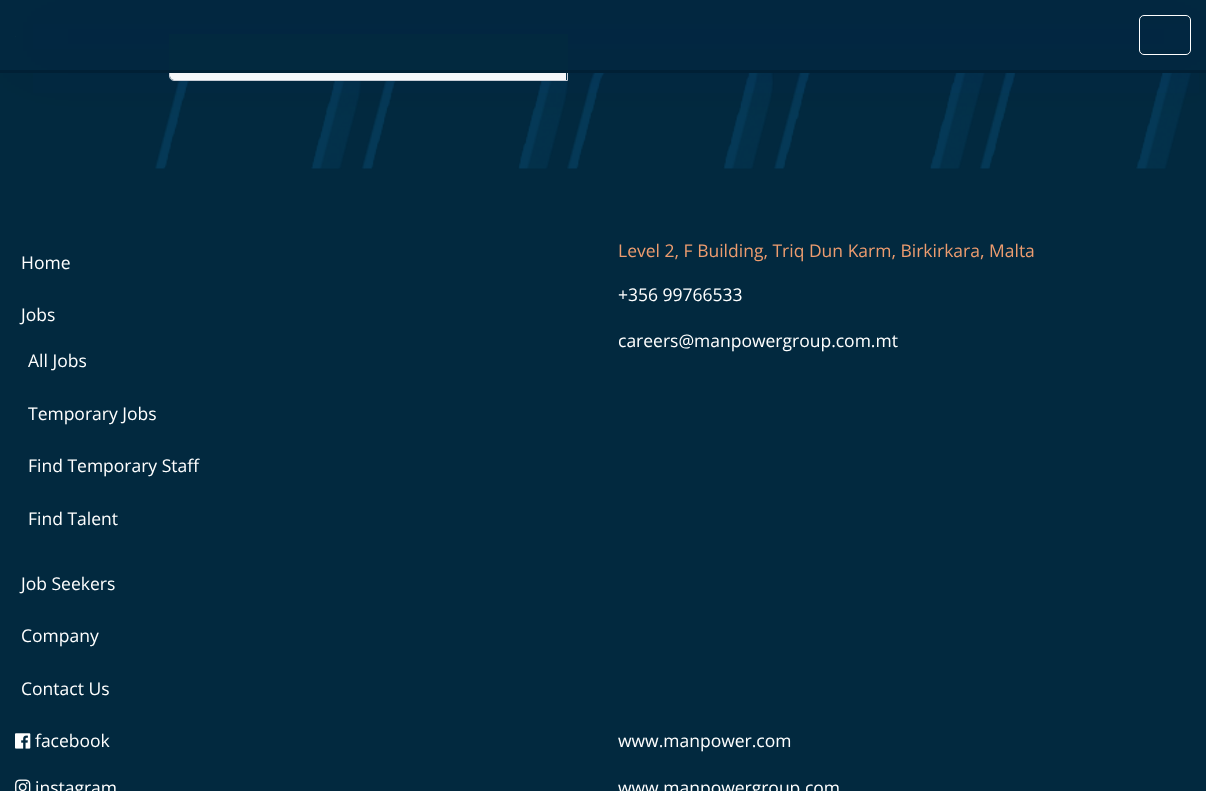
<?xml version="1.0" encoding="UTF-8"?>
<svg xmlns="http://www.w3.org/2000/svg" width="1206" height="791">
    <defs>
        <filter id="blur1" x="-50%" y="-200%" width="200%" height="500%"><feGaussianBlur stdDeviation="30.5"/></filter>
    </defs>
    <rect width="100%" height="100%" fill="#02293F"/>
    <image x="155" y="73" width="1036" height="96" href="img_01.png"/>
    <path d="M 174 35 H 566 V 80 H 174 C 172 80 170 78 170 76 V 39 C 170 37 172 35 174 35 Z" fill="#FFFFFF"/>
    <path d="M 174 34.5 H 567.5 V 80.5 H 174 C 171.5 80.5 169.5 78.5 169.5 76 V 39 C 169.5 36.5 171.5 34.5 174 34.5 Z" fill="none" stroke="#CED4DA"/>
    <rect x="13" y="0" width="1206" height="73" fill="#190759" fill-opacity="0.08" filter="url(#blur1)"/>
    <rect x="169" y="34" width="399" height="36" fill="#02293F"/>
    <rect x="0" y="70" width="1206" height="3" fill="#012035"/>
    <rect x="15" y="36" width="1" height="1" fill="#062C41"/>
    <rect x="1139.5" y="15.5" width="51" height="39" rx="4.5" fill="none" stroke="#FFFFFF"/>
    <text x="21" y="269" font-family="Open Sans" font-size="17.5" fill="#FFFFFF">Home</text>
    <text x="21" y="321" font-family="Open Sans" font-size="17.5" fill="#FFFFFF">Jobs</text>
    <text x="28" y="367" font-family="Open Sans" font-size="17.5" fill="#FFFFFF">All Jobs</text>
    <text x="28" y="420" font-family="Open Sans" font-size="17.5" fill="#FFFFFF">Temporary Jobs</text>
    <text x="28" y="472" font-family="Open Sans" font-size="17.5" fill="#FFFFFF">Find Temporary Staff</text>
    <text x="28" y="525" font-family="Open Sans" font-size="17.5" fill="#FFFFFF">Find Talent</text>
    <text x="21" y="590" font-family="Open Sans" font-size="17.5" fill="#FFFFFF">Job Seekers</text>
    <text x="21" y="642" font-family="Open Sans" font-size="17.5" fill="#FFFFFF">Company</text>
    <text x="21" y="695" font-family="Open Sans" font-size="17.5" fill="#FFFFFF">Contact Us</text>
    <text x="618" y="257" font-family="Open Sans" font-size="17.5" fill="#ED9C6F">Level 2, F Building, Triq Dun Karm, Birkirkara, Malta</text>
    <text x="618" y="301" font-family="Open Sans" font-size="17.5" fill="#FFFFFF">+356 99766533</text>
    <text x="618" y="347" font-family="Open Sans" font-size="17.5" fill="#FFFFFF">careers@manpowergroup.com.mt</text>
    <image x="15" y="733" width="16" height="16" href="img_02.png"/>
    <text x="35" y="747" font-family="Open Sans" font-size="17.5" fill="#FFFFFF">facebook</text>
    <image x="15" y="779" width="16" height="12" href="img_03.png"/>
    <text x="35" y="794" font-family="Open Sans" font-size="17.5" fill="#FFFFFF">instagram</text>
    <text x="618" y="747" font-family="Open Sans" font-size="17.5" fill="#FFFFFF">www.manpower.com</text>
    <text x="618" y="794" font-family="Open Sans" font-size="17.5" fill="#FFFFFF">www.manpowergroup.com</text>
</svg>
